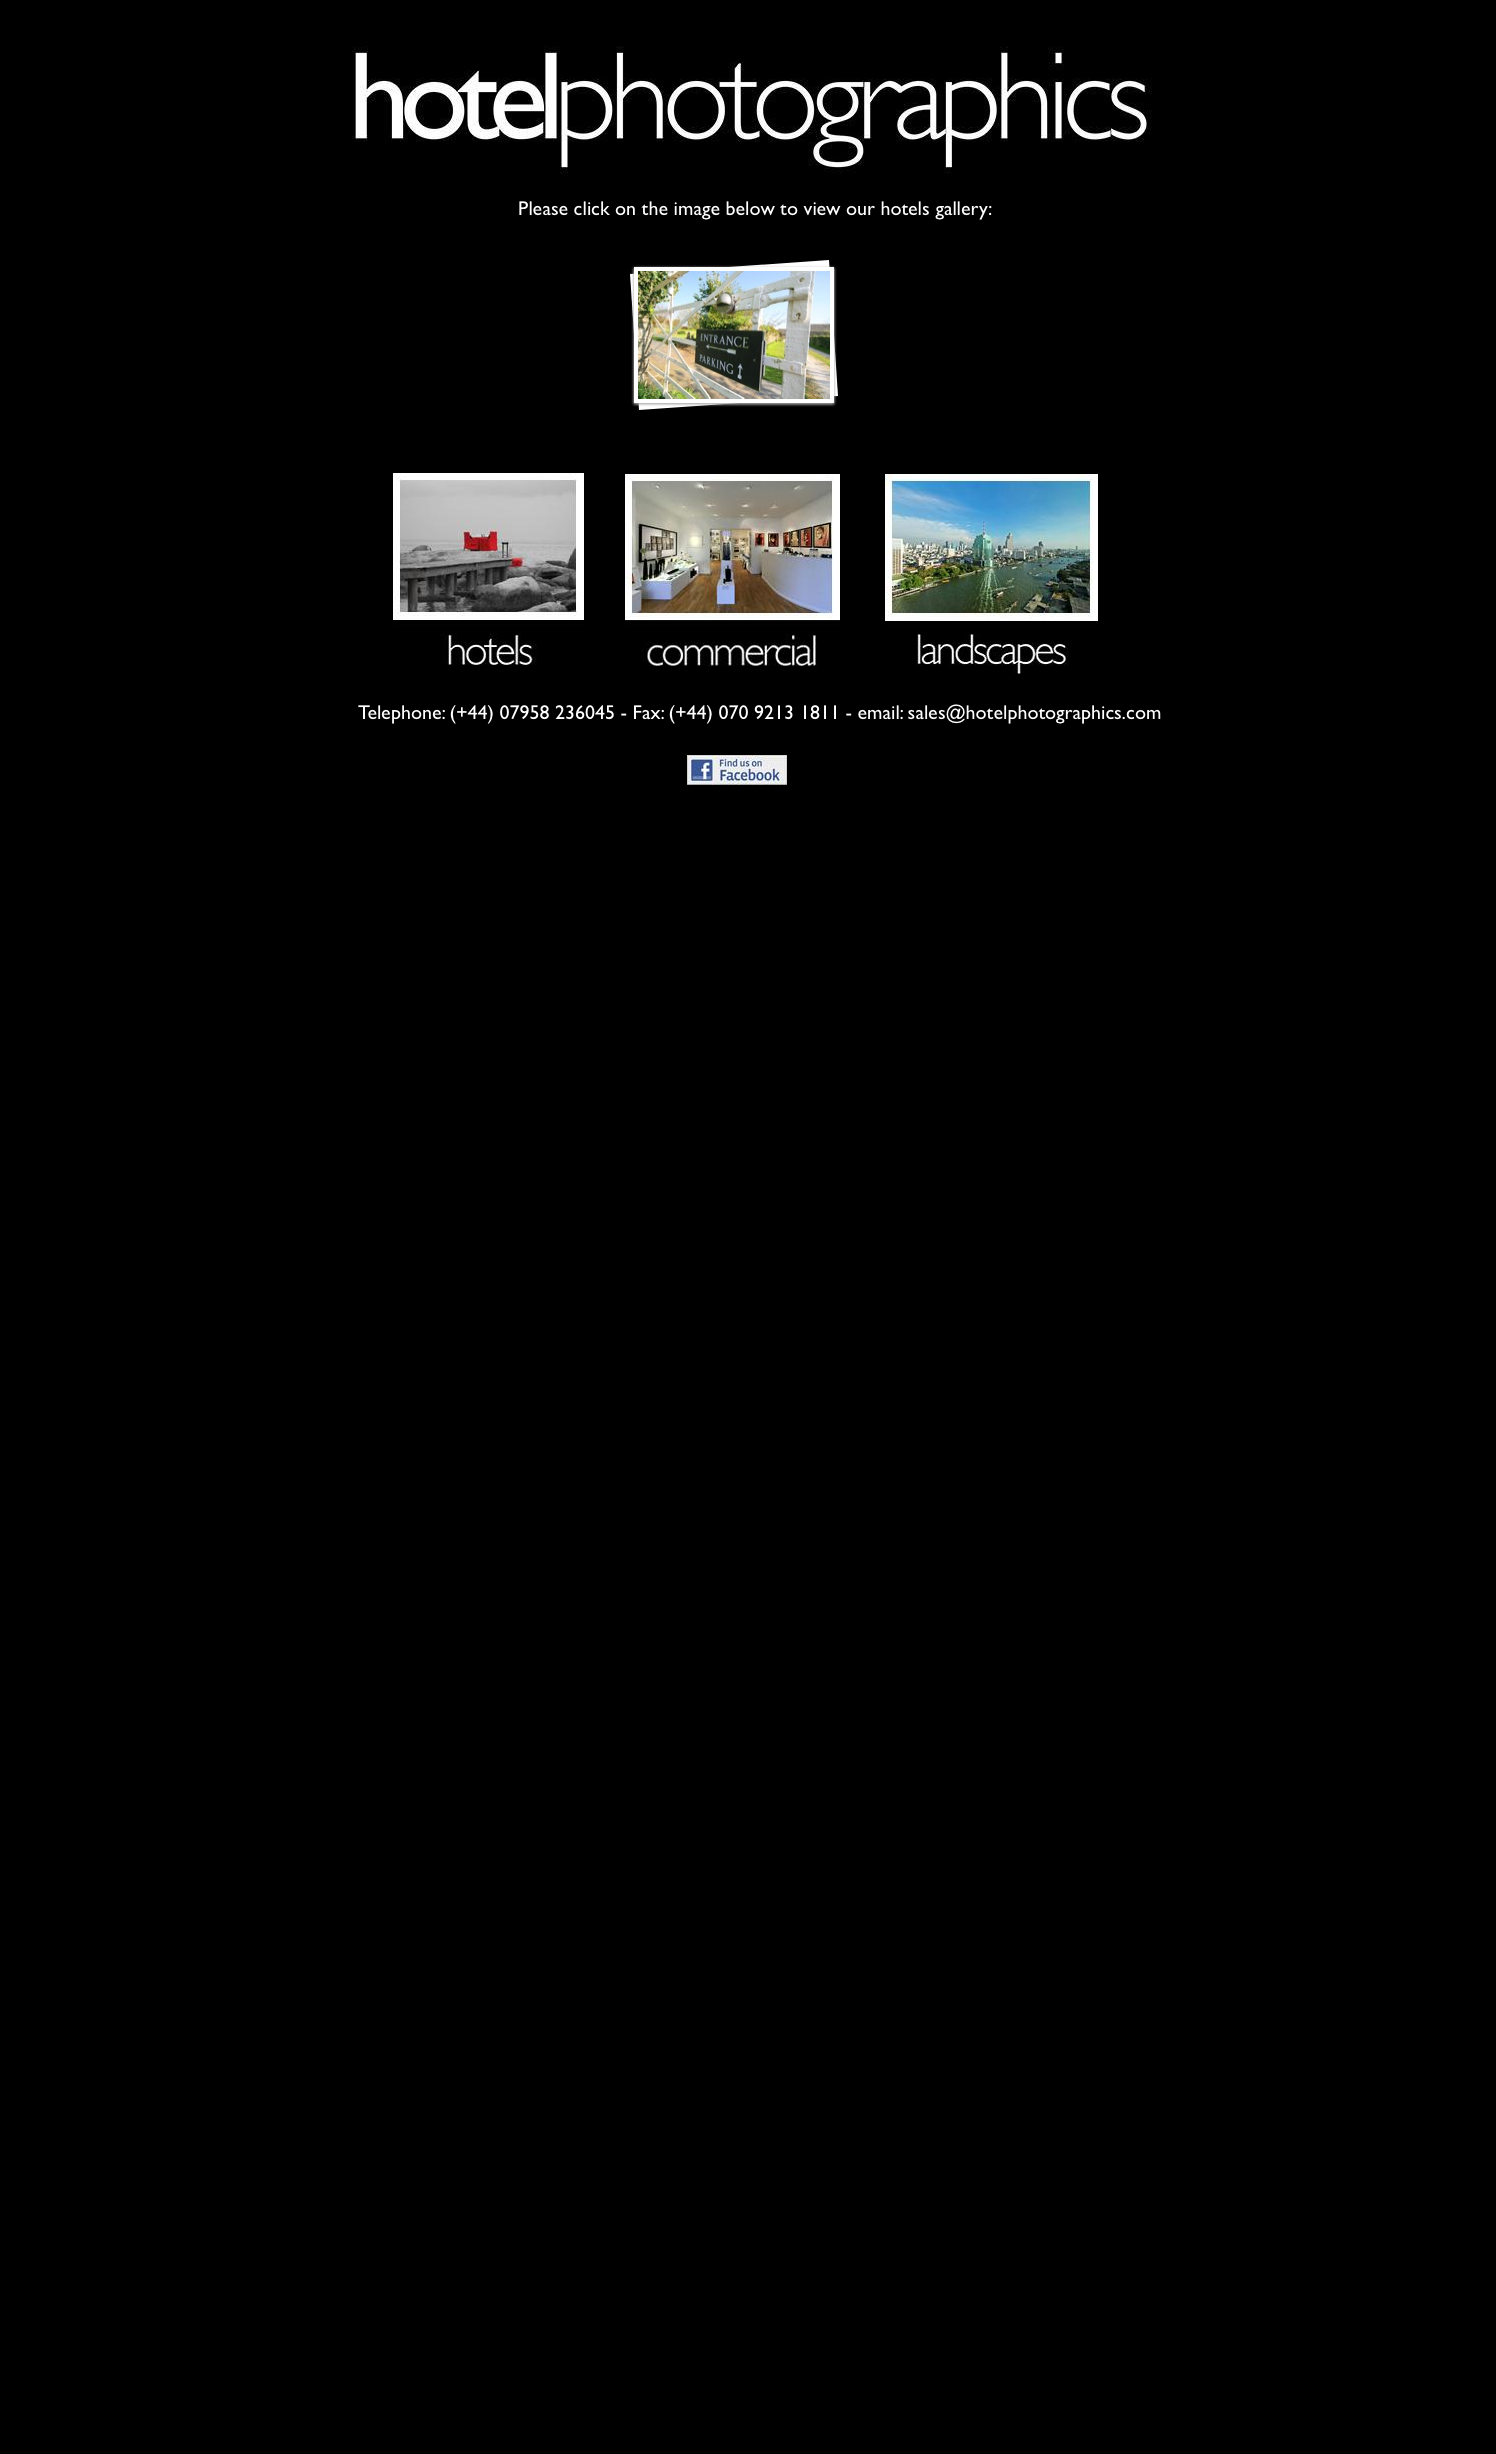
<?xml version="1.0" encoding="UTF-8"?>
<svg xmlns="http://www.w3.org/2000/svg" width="1496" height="2454">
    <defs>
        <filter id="blur1" x="-50%" y="-200%" width="200%" height="500%"><feGaussianBlur stdDeviation="1.5"/></filter>
    </defs>
    <rect width="100%" height="100%" fill="#000000"/>
    <image x="352" y="46" width="800" height="128" href="img_01.png"/>
    <image x="519" y="201" width="473" height="19" href="img_02.png"/>
    <rect x="634" y="268" width="200" height="136" fill="#999999" filter="url(#blur1)"/>
    <path d="M 630 274 L 829 260 L 838 396 L 639 410 Z" fill="#FFFFFF"/>
    <rect x="634" y="268" width="200" height="136" fill="#999999" filter="url(#blur1)"/>
    <rect x="634" y="267" width="200" height="136" fill="#FFFFFF"/>
    <image x="638" y="271" width="192" height="128" href="img_03.png"/>
    <image x="393" y="473" width="191" height="192" href="img_04.png"/>
    <image x="625" y="474" width="215" height="192" href="img_05.png"/>
    <image x="885" y="474" width="213" height="200" href="img_06.png"/>
    <image x="358" y="704" width="803" height="20" href="img_07.png"/>
    <image x="687" y="755" width="100" height="30" href="img_08.png"/>
</svg>
